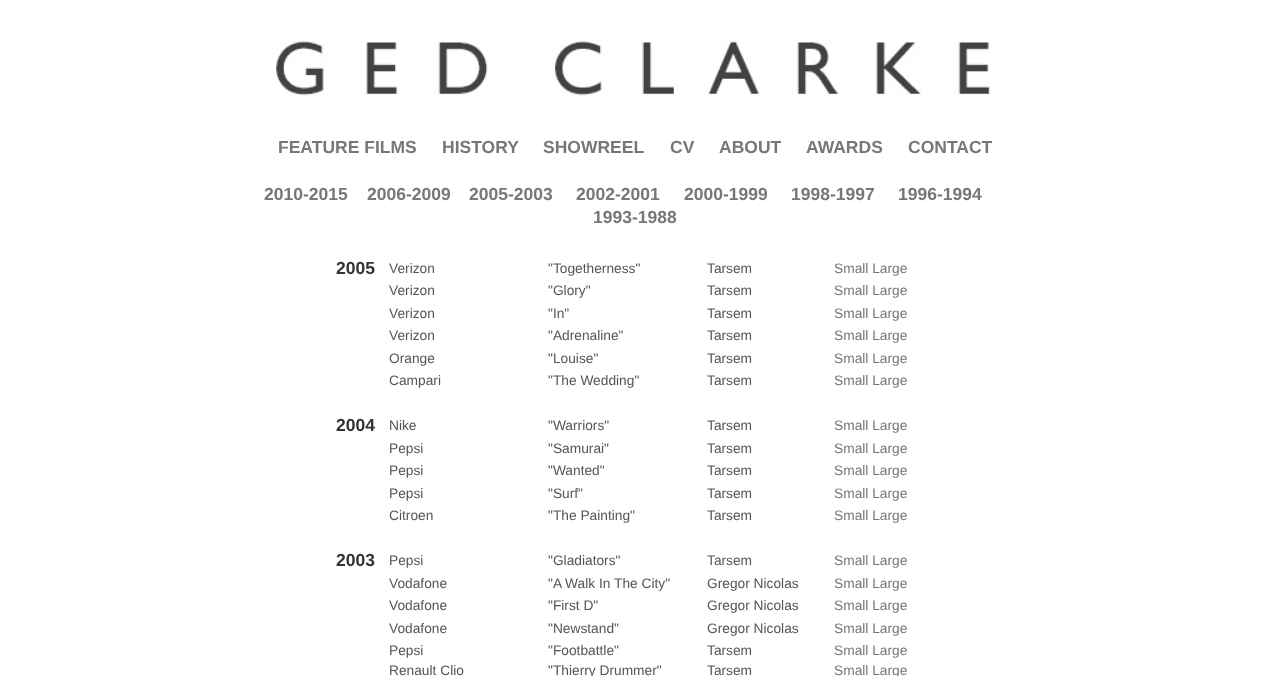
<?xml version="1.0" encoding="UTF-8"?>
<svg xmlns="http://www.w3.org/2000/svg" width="1269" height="676">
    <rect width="100%" height="100%" fill="#FFFFFF"/>
    <image x="276" y="41" width="715" height="59" href="img_01.png"/>
    <text x="278" y="153" font-family="Liberation Sans" font-size="17.5" font-weight="700" fill="#777777">FEATURE FILMS</text>
    <text x="442" y="153" font-family="Liberation Sans" font-size="17.5" font-weight="700" fill="#777777">HISTORY</text>
    <text x="543" y="153" font-family="Liberation Sans" font-size="17.5" font-weight="700" fill="#777777">SHOWREEL</text>
    <text x="670" y="153" font-family="Liberation Sans" font-size="17.5" font-weight="700" fill="#777777">CV</text>
    <text x="719" y="153" font-family="Liberation Sans" font-size="17.5" font-weight="700" fill="#777777">ABOUT</text>
    <text x="806" y="153" font-family="Liberation Sans" font-size="17.5" font-weight="700" fill="#777777">AWARDS</text>
    <text x="908" y="153" font-family="Liberation Sans" font-size="17.5" font-weight="700" fill="#777777">CONTACT</text>
    <text x="264" y="200" font-family="Liberation Sans" font-size="17.5" font-weight="700" fill="#777777">2010-2015</text>
    <text x="367" y="200" font-family="Liberation Sans" font-size="17.5" font-weight="700" fill="#777777">2006-2009</text>
    <text x="469" y="200" font-family="Liberation Sans" font-size="17.5" font-weight="700" fill="#777777">2005-2003</text>
    <text x="576" y="200" font-family="Liberation Sans" font-size="17.5" font-weight="700" fill="#777777">2002-2001</text>
    <text x="684" y="200" font-family="Liberation Sans" font-size="17.5" font-weight="700" fill="#777777">2000-1999</text>
    <text x="791" y="200" font-family="Liberation Sans" font-size="17.5" font-weight="700" fill="#777777">1998-1997</text>
    <text x="898" y="200" font-family="Liberation Sans" font-size="17.5" font-weight="700" fill="#777777">1996-1994</text>
    <text x="593" y="223" font-family="Liberation Sans" font-size="17.5" font-weight="700" fill="#777777">1993-1988</text>
    <text x="336" y="274" font-family="Liberation Sans" font-size="17.5" font-weight="700" fill="#333333">2005</text>
    <text x="389" y="273" font-family="Liberation Sans" font-size="13.75" fill="#555555">Verizon</text>
    <text x="548" y="273" font-family="Liberation Sans" font-size="13.75" fill="#555555">"Togetherness"</text>
    <text x="707" y="273" font-family="Liberation Sans" font-size="13.75" fill="#555555">Tarsem</text>
    <text x="834" y="273" font-family="Liberation Sans" font-size="13.75" fill="#777777">Small Large</text>
    <text x="389" y="295" font-family="Liberation Sans" font-size="13.75" fill="#555555">Verizon</text>
    <text x="548" y="295" font-family="Liberation Sans" font-size="13.75" fill="#555555">"Glory"</text>
    <text x="707" y="295" font-family="Liberation Sans" font-size="13.75" fill="#555555">Tarsem</text>
    <text x="834" y="295" font-family="Liberation Sans" font-size="13.75" fill="#777777">Small Large</text>
    <text x="389" y="318" font-family="Liberation Sans" font-size="13.75" fill="#555555">Verizon</text>
    <text x="548" y="318" font-family="Liberation Sans" font-size="13.75" fill="#555555">"In"</text>
    <text x="707" y="318" font-family="Liberation Sans" font-size="13.75" fill="#555555">Tarsem</text>
    <text x="834" y="318" font-family="Liberation Sans" font-size="13.75" fill="#777777">Small Large</text>
    <text x="389" y="340" font-family="Liberation Sans" font-size="13.75" fill="#555555">Verizon</text>
    <text x="548" y="340" font-family="Liberation Sans" font-size="13.75" fill="#555555">"Adrenaline"</text>
    <text x="707" y="340" font-family="Liberation Sans" font-size="13.75" fill="#555555">Tarsem</text>
    <text x="834" y="340" font-family="Liberation Sans" font-size="13.75" fill="#777777">Small Large</text>
    <text x="389" y="363" font-family="Liberation Sans" font-size="13.75" fill="#555555">Orange</text>
    <text x="548" y="363" font-family="Liberation Sans" font-size="13.75" fill="#555555">"Louise"</text>
    <text x="707" y="363" font-family="Liberation Sans" font-size="13.75" fill="#555555">Tarsem</text>
    <text x="834" y="363" font-family="Liberation Sans" font-size="13.75" fill="#777777">Small Large</text>
    <text x="389" y="385" font-family="Liberation Sans" font-size="13.75" fill="#555555">Campari</text>
    <text x="548" y="385" font-family="Liberation Sans" font-size="13.75" fill="#555555">"The Wedding"</text>
    <text x="707" y="385" font-family="Liberation Sans" font-size="13.75" fill="#555555">Tarsem</text>
    <text x="834" y="385" font-family="Liberation Sans" font-size="13.75" fill="#777777">Small Large</text>
    <text x="336" y="431" font-family="Liberation Sans" font-size="17.5" font-weight="700" fill="#333333">2004</text>
    <text x="389" y="430" font-family="Liberation Sans" font-size="13.75" fill="#555555">Nike</text>
    <text x="548" y="430" font-family="Liberation Sans" font-size="13.75" fill="#555555">"Warriors"</text>
    <text x="707" y="430" font-family="Liberation Sans" font-size="13.75" fill="#555555">Tarsem</text>
    <text x="834" y="430" font-family="Liberation Sans" font-size="13.75" fill="#777777">Small Large</text>
    <text x="389" y="453" font-family="Liberation Sans" font-size="13.75" fill="#555555">Pepsi</text>
    <text x="548" y="453" font-family="Liberation Sans" font-size="13.75" fill="#555555">"Samurai"</text>
    <text x="707" y="453" font-family="Liberation Sans" font-size="13.75" fill="#555555">Tarsem</text>
    <text x="834" y="453" font-family="Liberation Sans" font-size="13.75" fill="#777777">Small Large</text>
    <text x="389" y="475" font-family="Liberation Sans" font-size="13.75" fill="#555555">Pepsi</text>
    <text x="548" y="475" font-family="Liberation Sans" font-size="13.75" fill="#555555">"Wanted"</text>
    <text x="707" y="475" font-family="Liberation Sans" font-size="13.75" fill="#555555">Tarsem</text>
    <text x="834" y="475" font-family="Liberation Sans" font-size="13.75" fill="#777777">Small Large</text>
    <text x="389" y="498" font-family="Liberation Sans" font-size="13.75" fill="#555555">Pepsi</text>
    <text x="548" y="498" font-family="Liberation Sans" font-size="13.75" fill="#555555">"Surf"</text>
    <text x="707" y="498" font-family="Liberation Sans" font-size="13.75" fill="#555555">Tarsem</text>
    <text x="834" y="498" font-family="Liberation Sans" font-size="13.75" fill="#777777">Small Large</text>
    <text x="389" y="520" font-family="Liberation Sans" font-size="13.75" fill="#555555">Citroen</text>
    <text x="548" y="520" font-family="Liberation Sans" font-size="13.75" fill="#555555">"The Painting"</text>
    <text x="707" y="520" font-family="Liberation Sans" font-size="13.75" fill="#555555">Tarsem</text>
    <text x="834" y="520" font-family="Liberation Sans" font-size="13.75" fill="#777777">Small Large</text>
    <text x="336" y="566" font-family="Liberation Sans" font-size="17.5" font-weight="700" fill="#333333">2003</text>
    <text x="389" y="565" font-family="Liberation Sans" font-size="13.75" fill="#555555">Pepsi</text>
    <text x="548" y="565" font-family="Liberation Sans" font-size="13.75" fill="#555555">"Gladiators"</text>
    <text x="707" y="565" font-family="Liberation Sans" font-size="13.75" fill="#555555">Tarsem</text>
    <text x="834" y="565" font-family="Liberation Sans" font-size="13.75" fill="#777777">Small Large</text>
    <text x="389" y="588" font-family="Liberation Sans" font-size="13.75" fill="#555555">Vodafone</text>
    <text x="548" y="588" font-family="Liberation Sans" font-size="13.75" fill="#555555">"A Walk In The City"</text>
    <text x="707" y="588" font-family="Liberation Sans" font-size="13.75" fill="#555555">Gregor Nicolas</text>
    <text x="834" y="588" font-family="Liberation Sans" font-size="13.75" fill="#777777">Small Large</text>
    <text x="389" y="610" font-family="Liberation Sans" font-size="13.75" fill="#555555">Vodafone</text>
    <text x="548" y="610" font-family="Liberation Sans" font-size="13.75" fill="#555555">"First D"</text>
    <text x="707" y="610" font-family="Liberation Sans" font-size="13.75" fill="#555555">Gregor Nicolas</text>
    <text x="834" y="610" font-family="Liberation Sans" font-size="13.75" fill="#777777">Small Large</text>
    <text x="389" y="633" font-family="Liberation Sans" font-size="13.75" fill="#555555">Vodafone</text>
    <text x="548" y="633" font-family="Liberation Sans" font-size="13.75" fill="#555555">"Newstand"</text>
    <text x="707" y="633" font-family="Liberation Sans" font-size="13.75" fill="#555555">Gregor Nicolas</text>
    <text x="834" y="633" font-family="Liberation Sans" font-size="13.75" fill="#777777">Small Large</text>
    <text x="389" y="655" font-family="Liberation Sans" font-size="13.75" fill="#555555">Pepsi</text>
    <text x="548" y="655" font-family="Liberation Sans" font-size="13.75" fill="#555555">"Footbattle"</text>
    <text x="707" y="655" font-family="Liberation Sans" font-size="13.75" fill="#555555">Tarsem</text>
    <text x="834" y="655" font-family="Liberation Sans" font-size="13.75" fill="#777777">Small Large</text>
    <text x="389" y="675" font-family="Liberation Sans" font-size="13.75" fill="#555555">Renault Clio</text>
    <text x="548" y="675" font-family="Liberation Sans" font-size="13.75" fill="#555555">"Thierry Drummer"</text>
    <text x="707" y="675" font-family="Liberation Sans" font-size="13.75" fill="#555555">Tarsem</text>
    <text x="834" y="675" font-family="Liberation Sans" font-size="13.75" fill="#777777">Small Large</text>
</svg>
